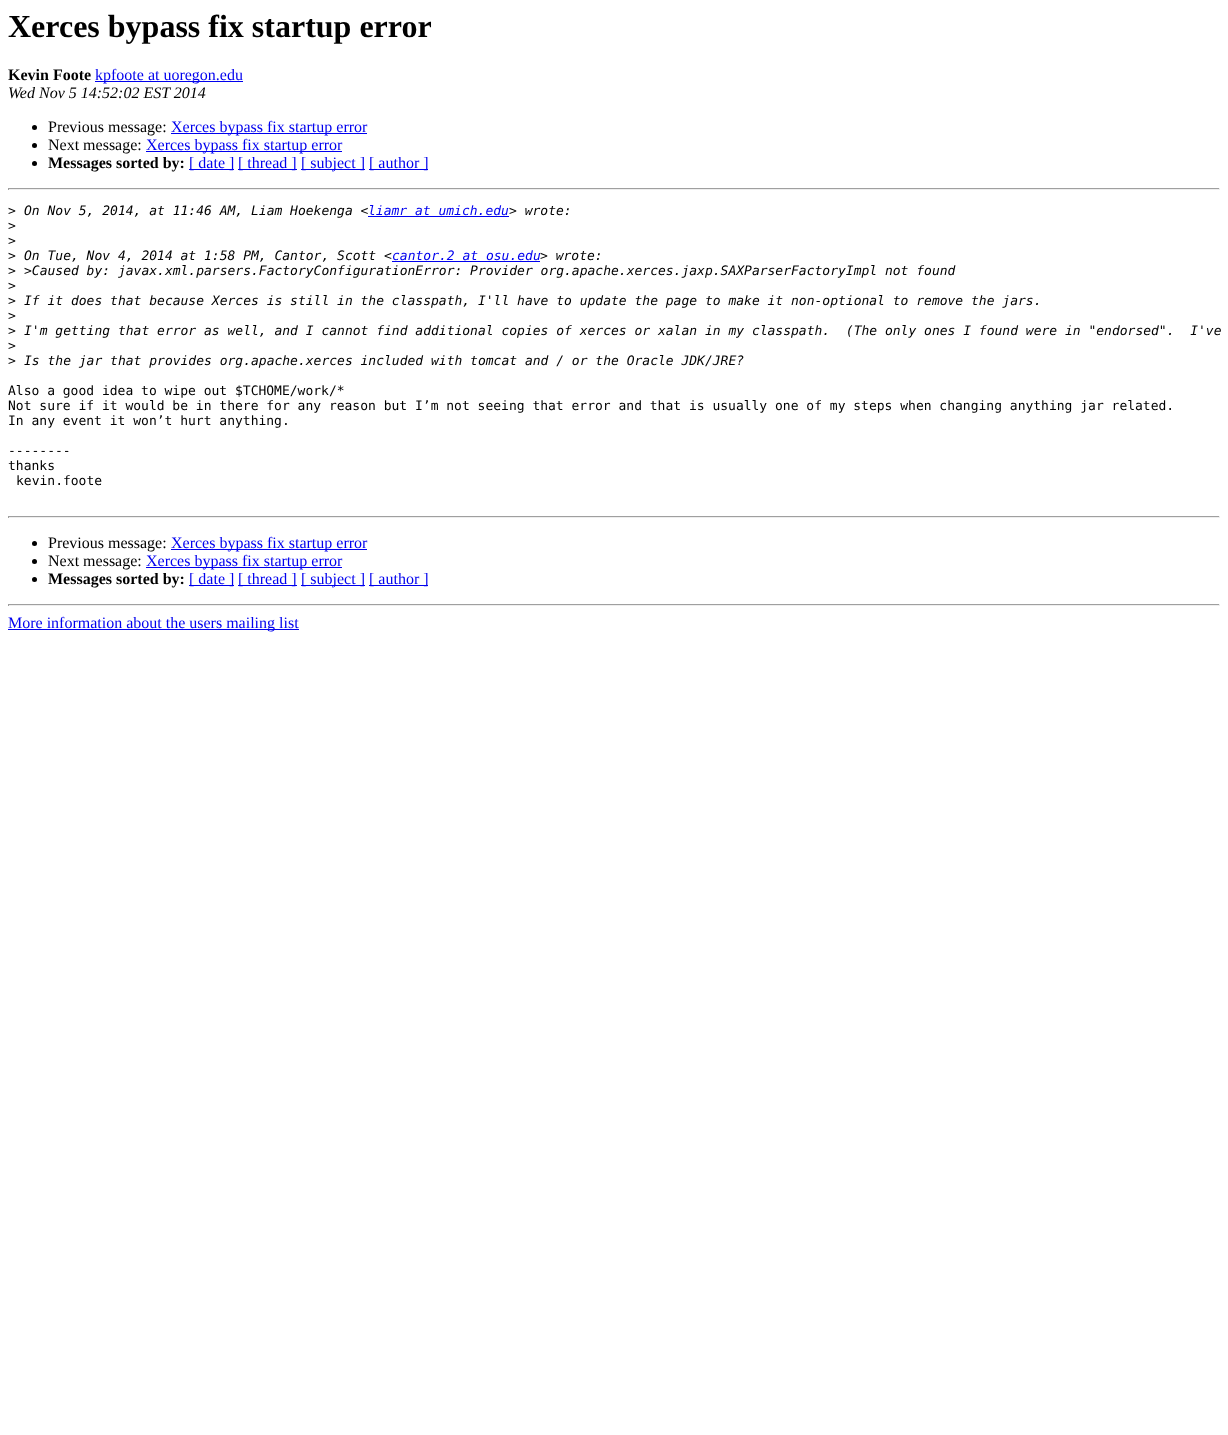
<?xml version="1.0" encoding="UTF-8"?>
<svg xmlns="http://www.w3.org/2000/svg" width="1228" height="1435">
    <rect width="100%" height="100%" fill="#FFFFFF"/>
    <text x="8" y="37" font-family="Liberation Serif" font-size="32" font-weight="700" fill="#000000">Xerces bypass fix startup error</text>
    <text x="8" y="80" font-family="Liberation Serif" font-size="16" font-weight="700" fill="#000000">Kevin Foote</text>
    <rect x="95" y="81" width="148" height="1" fill="#0000EE"/>
    <text x="95" y="80" font-family="Liberation Serif" font-size="16" fill="#0000EE">kpfoote at uoregon.edu</text>
    <text x="8" y="98" font-family="Liberation Serif" font-size="16" font-style="italic" fill="#000000">Wed Nov 5 14:52:02 EST 2014</text>
    <circle cx="34.5" cy="127.5" r="2.5" fill="#000000"/>
    <text x="48" y="132" font-family="Liberation Serif" font-size="16" fill="#000000">Previous message:</text>
    <rect x="171" y="133" width="196" height="1" fill="#0000EE"/>
    <text x="171" y="132" font-family="Liberation Serif" font-size="16" fill="#0000EE">Xerces bypass fix startup error</text>
    <circle cx="34.5" cy="145.5" r="2.5" fill="#000000"/>
    <text x="48" y="150" font-family="Liberation Serif" font-size="16" fill="#000000">Next message:</text>
    <rect x="146" y="151" width="196" height="1" fill="#0000EE"/>
    <text x="146" y="150" font-family="Liberation Serif" font-size="16" fill="#0000EE">Xerces bypass fix startup error</text>
    <circle cx="34.5" cy="163.5" r="2.5" fill="#000000"/>
    <text x="48" y="168" font-family="Liberation Serif" font-size="16" font-weight="700" fill="#000000">Messages sorted by:</text>
    <rect x="189" y="169" width="45" height="1" fill="#0000EE"/>
    <text x="189" y="168" font-family="Liberation Serif" font-size="16" fill="#0000EE">[ date ]</text>
    <rect x="238" y="169" width="59" height="1" fill="#0000EE"/>
    <text x="238" y="168" font-family="Liberation Serif" font-size="16" fill="#0000EE">[ thread ]</text>
    <rect x="301" y="169" width="64" height="1" fill="#0000EE"/>
    <text x="301" y="168" font-family="Liberation Serif" font-size="16" fill="#0000EE">[ subject ]</text>
    <rect x="369" y="169" width="59" height="1" fill="#0000EE"/>
    <text x="369" y="168" font-family="Liberation Serif" font-size="16" fill="#0000EE">[ author ]</text>
    <rect x="8" y="188" width="1212" height="1" fill="#9F9F9F"/>
    <rect x="1219" y="188" width="1" height="2" fill="#EEEEEE"/>
    <rect x="8" y="189" width="1212" height="1" fill="#EEEEEE"/>
    <rect x="8" y="188" width="1" height="2" fill="#9F9F9F"/>
    <text x="8" y="215" font-family="DejaVu Sans Mono" font-size="13" fill="#000000">&gt;</text>
    <text x="24" y="215" font-family="DejaVu Sans Mono" font-size="13" font-style="italic" fill="#000000">On Nov 5, 2014, at 11:46 AM, Liam Hoekenga &lt;</text>
    <rect x="368" y="216" width="141" height="1" fill="#0000EE"/>
    <text x="368" y="215" font-family="DejaVu Sans Mono" font-size="13" font-style="italic" fill="#0000EE">liamr at umich.edu</text>
    <text x="509" y="215" font-family="DejaVu Sans Mono" font-size="13" font-style="italic" fill="#000000">&gt; wrote:</text>
    <text font-family="DejaVu Sans Mono" font-size="13" fill="#000000">
        <tspan x="8" y="230">&gt;</tspan>
        <tspan x="8" y="245">&gt;</tspan>
        <tspan x="8" y="260">&gt;</tspan>
    </text>
    <text x="24" y="260" font-family="DejaVu Sans Mono" font-size="13" font-style="italic" fill="#000000">On Tue, Nov 4, 2014 at 1:58 PM, Cantor, Scott &lt;</text>
    <rect x="392" y="261" width="148" height="1" fill="#0000EE"/>
    <text x="392" y="260" font-family="DejaVu Sans Mono" font-size="13" font-style="italic" fill="#0000EE">cantor.2 at osu.edu</text>
    <text x="540" y="260" font-family="DejaVu Sans Mono" font-size="13" font-style="italic" fill="#000000">&gt; wrote:</text>
    <text x="8" y="275" font-family="DejaVu Sans Mono" font-size="13" fill="#000000">&gt;</text>
    <text x="24" y="275" font-family="DejaVu Sans Mono" font-size="13" font-style="italic" fill="#000000">&gt;Caused by: javax.xml.parsers.FactoryConfigurationError: Provider org.apache.xerces.jaxp.SAXParserFactoryImpl not found</text>
    <text font-family="DejaVu Sans Mono" font-size="13" fill="#000000">
        <tspan x="8" y="290">&gt;</tspan>
        <tspan x="8" y="305">&gt;</tspan>
    </text>
    <text x="24" y="305" font-family="DejaVu Sans Mono" font-size="13" font-style="italic" fill="#000000">If it does that because Xerces is still in the classpath, I'll have to update the page to make it non-optional to remove the jars.</text>
    <text font-family="DejaVu Sans Mono" font-size="13" fill="#000000">
        <tspan x="8" y="320">&gt;</tspan>
        <tspan x="8" y="335">&gt;</tspan>
    </text>
    <text x="24" y="335" font-family="DejaVu Sans Mono" font-size="13" font-style="italic" fill="#000000" xml:space="preserve">I'm getting that error as well, and I cannot find additional copies of xerces or xalan in my classpath.  (The only ones I found were in "endorsed".  I've</text>
    <text font-family="DejaVu Sans Mono" font-size="13" fill="#000000">
        <tspan x="8" y="350">&gt;</tspan>
        <tspan x="8" y="365">&gt;</tspan>
    </text>
    <text x="24" y="365" font-family="DejaVu Sans Mono" font-size="13" font-style="italic" fill="#000000">Is the jar that provides org.apache.xerces included with tomcat and / or the Oracle JDK/JRE?</text>
    <text font-family="DejaVu Sans Mono" font-size="13" fill="#000000">
        <tspan x="8" y="395">Also a good idea to wipe out $TCHOME/work/*</tspan>
        <tspan x="8" y="410">Not sure if it would be in there for any reason but I’m not seeing that error and that is usually one of my steps when changing anything jar related.</tspan>
        <tspan x="8" y="425">In any event it won’t hurt anything.</tspan>
    </text>
    <text font-family="DejaVu Sans Mono" font-size="13" fill="#000000">
        <tspan x="8" y="455">--------</tspan>
        <tspan x="8" y="470">thanks</tspan>
    </text>
    <text x="16" y="485" font-family="DejaVu Sans Mono" font-size="13" fill="#000000">kevin.foote</text>
    <rect x="8" y="516" width="1212" height="1" fill="#9F9F9F"/>
    <rect x="1219" y="516" width="1" height="2" fill="#EEEEEE"/>
    <rect x="8" y="517" width="1212" height="1" fill="#EEEEEE"/>
    <rect x="8" y="516" width="1" height="2" fill="#9F9F9F"/>
    <circle cx="34.5" cy="543.5" r="2.5" fill="#000000"/>
    <text x="48" y="548" font-family="Liberation Serif" font-size="16" fill="#000000">Previous message:</text>
    <rect x="171" y="549" width="196" height="1" fill="#0000EE"/>
    <text x="171" y="548" font-family="Liberation Serif" font-size="16" fill="#0000EE">Xerces bypass fix startup error</text>
    <circle cx="34.5" cy="561.5" r="2.5" fill="#000000"/>
    <text x="48" y="566" font-family="Liberation Serif" font-size="16" fill="#000000">Next message:</text>
    <rect x="146" y="567" width="196" height="1" fill="#0000EE"/>
    <text x="146" y="566" font-family="Liberation Serif" font-size="16" fill="#0000EE">Xerces bypass fix startup error</text>
    <circle cx="34.5" cy="579.5" r="2.5" fill="#000000"/>
    <text x="48" y="584" font-family="Liberation Serif" font-size="16" font-weight="700" fill="#000000">Messages sorted by:</text>
    <rect x="189" y="585" width="45" height="1" fill="#0000EE"/>
    <text x="189" y="584" font-family="Liberation Serif" font-size="16" fill="#0000EE">[ date ]</text>
    <rect x="238" y="585" width="59" height="1" fill="#0000EE"/>
    <text x="238" y="584" font-family="Liberation Serif" font-size="16" fill="#0000EE">[ thread ]</text>
    <rect x="301" y="585" width="64" height="1" fill="#0000EE"/>
    <text x="301" y="584" font-family="Liberation Serif" font-size="16" fill="#0000EE">[ subject ]</text>
    <rect x="369" y="585" width="59" height="1" fill="#0000EE"/>
    <text x="369" y="584" font-family="Liberation Serif" font-size="16" fill="#0000EE">[ author ]</text>
    <rect x="8" y="604" width="1212" height="1" fill="#9F9F9F"/>
    <rect x="1219" y="604" width="1" height="2" fill="#EEEEEE"/>
    <rect x="8" y="605" width="1212" height="1" fill="#EEEEEE"/>
    <rect x="8" y="604" width="1" height="2" fill="#9F9F9F"/>
    <rect x="8" y="629" width="291" height="1" fill="#0000EE"/>
    <text x="8" y="628" font-family="Liberation Serif" font-size="16" fill="#0000EE">More information about the users mailing list</text>
</svg>
